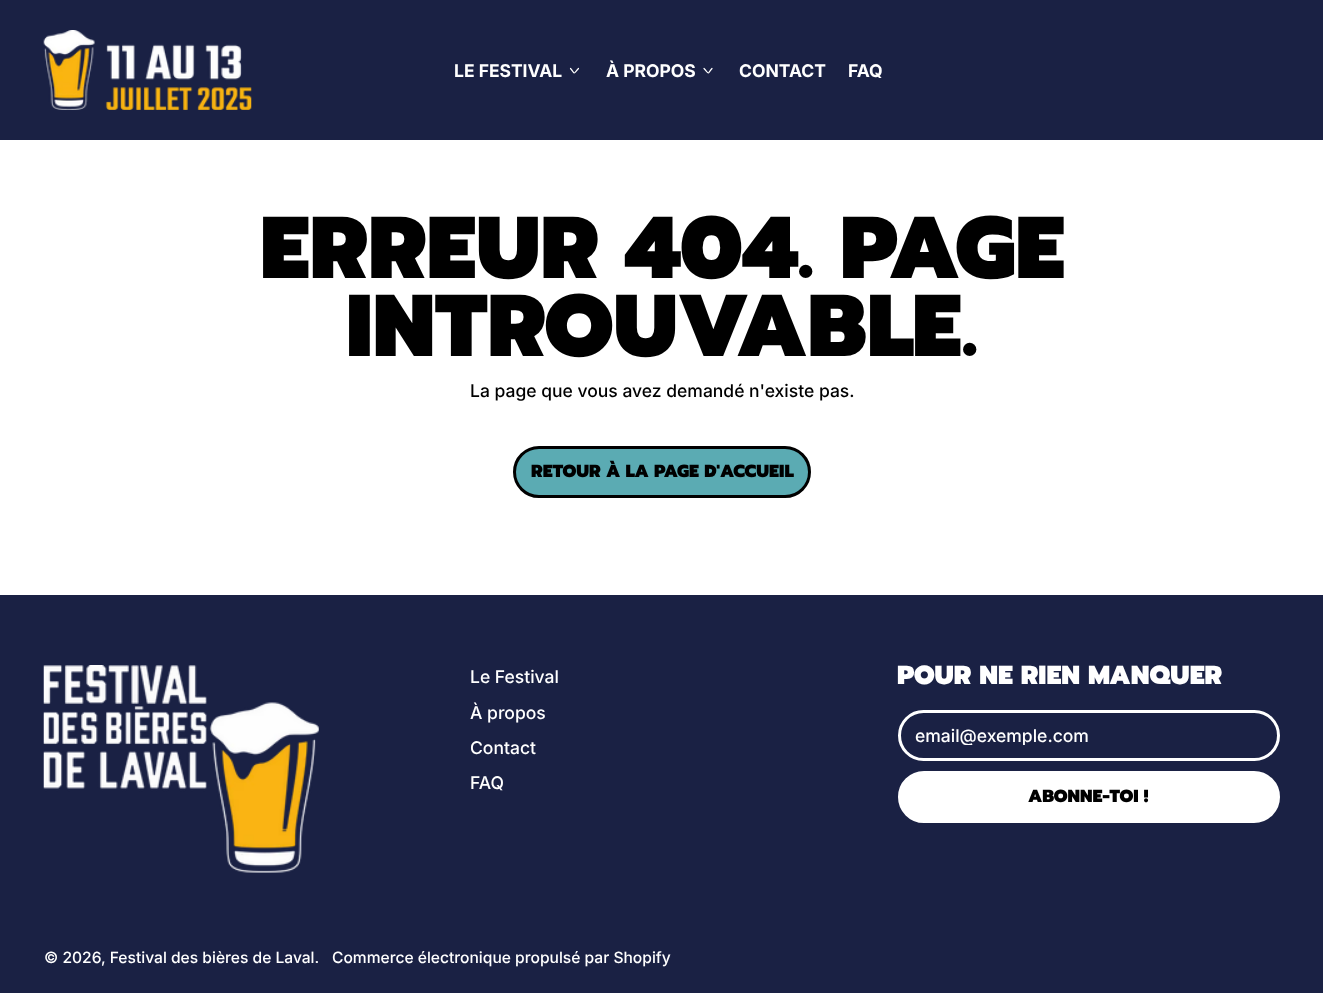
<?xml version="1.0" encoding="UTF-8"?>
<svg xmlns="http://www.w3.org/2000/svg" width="1323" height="993">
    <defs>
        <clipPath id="clip1"><rect x="915" y="724" width="348" height="21"/></clipPath>
    </defs>
    <rect width="100%" height="100%" fill="#FFFFFF"/>
    <rect x="0" y="0" width="1323" height="140" fill="#1A2144"/>
    <image x="43" y="30" width="209" height="80" href="img_01.png"/>
    <text x="454" y="77" font-family="Inter" font-size="17.5" font-weight="700" fill="#FFFFFF">LE FESTIVAL</text>
    <path d="M 570.5 68.5 C 575.5 74.5 573 74.5 578.5 68.5" fill="none" stroke="#FFFFFF" stroke-width="1.2" stroke-linecap="round" stroke-linejoin="round"/>
    <text x="606" y="77" font-family="Inter" font-size="17.5" font-weight="700" fill="#FFFFFF">À PROPOS</text>
    <path d="M 704 68.5 C 709.5 74.5 707 74.5 712 68.5" fill="none" stroke="#FFFFFF" stroke-width="1.2" stroke-linecap="round" stroke-linejoin="round"/>
    <text x="739" y="77" font-family="Inter" font-size="17.5" font-weight="700" fill="#FFFFFF">CONTACT</text>
    <text x="848" y="77" font-family="Inter" font-size="17.5" font-weight="700" fill="#FFFFFF">FAQ</text>
    <text x="260" y="278" font-family="Prompt" font-size="87.5" font-weight="900" fill="#000000">ERREUR 404. PAGE</text>
    <text x="346" y="356" font-family="Prompt" font-size="87.5" font-weight="900" fill="#000000">INTROUVABLE.</text>
    <text x="470" y="397" font-family="Inter" font-size="17.5" font-weight="500" fill="#000000">La page que vous avez demandé n'existe pas.</text>
    <rect x="514.5" y="447.5" width="295" height="49" rx="24.5" fill="#5BABB3" stroke="#000000" stroke-width="3"/>
    <text x="531" y="477" font-family="Prompt" font-size="17.5" font-weight="900" fill="#000000">RETOUR À LA PAGE D'ACCUEIL</text>
    <rect x="0" y="595" width="1323" height="398" fill="#1A2144"/>
    <image x="43" y="665" width="276" height="208" href="img_02.png"/>
    <text x="470" y="683" font-family="Inter" font-size="17.5" font-weight="500" fill="#FFFFFF">Le Festival</text>
    <text x="470" y="719" font-family="Inter" font-size="17.5" font-weight="500" fill="#FFFFFF">À propos</text>
    <text x="470" y="754" font-family="Inter" font-size="17.5" font-weight="500" fill="#FFFFFF">Contact</text>
    <text x="470" y="789" font-family="Inter" font-size="17.5" font-weight="500" fill="#FFFFFF">FAQ</text>
    <text x="897" y="684" font-family="Prompt" font-size="26.25" font-weight="900" fill="#FFFFFF">POUR NE RIEN MANQUER</text>
    <rect x="899.5" y="711.5" width="379" height="48" rx="24" fill="none" stroke="#FFFFFF" stroke-width="3"/>
    <g clip-path="url(#clip1)">
        <text x="915" y="742" font-family="Inter" font-size="17.5" font-weight="500" fill="#FFFFFF">email@exemple.com</text>
    </g>
    <rect x="899.5" y="772.5" width="379" height="49" rx="24.5" fill="#FFFFFF" stroke="#FFFFFF" stroke-width="3"/>
    <text x="1028" y="802" font-family="Prompt" font-size="17.5" font-weight="900" fill="#000000">ABONNE-TOI !</text>
    <text x="44" y="963" font-family="Inter" font-size="15.6" font-weight="500" fill="#FFFFFF">© 2026, Festival des bières de Laval.</text>
    <text x="332" y="963" font-family="Inter" font-size="15.6" font-weight="500" fill="#FFFFFF">Commerce électronique propulsé par Shopify</text>
</svg>
